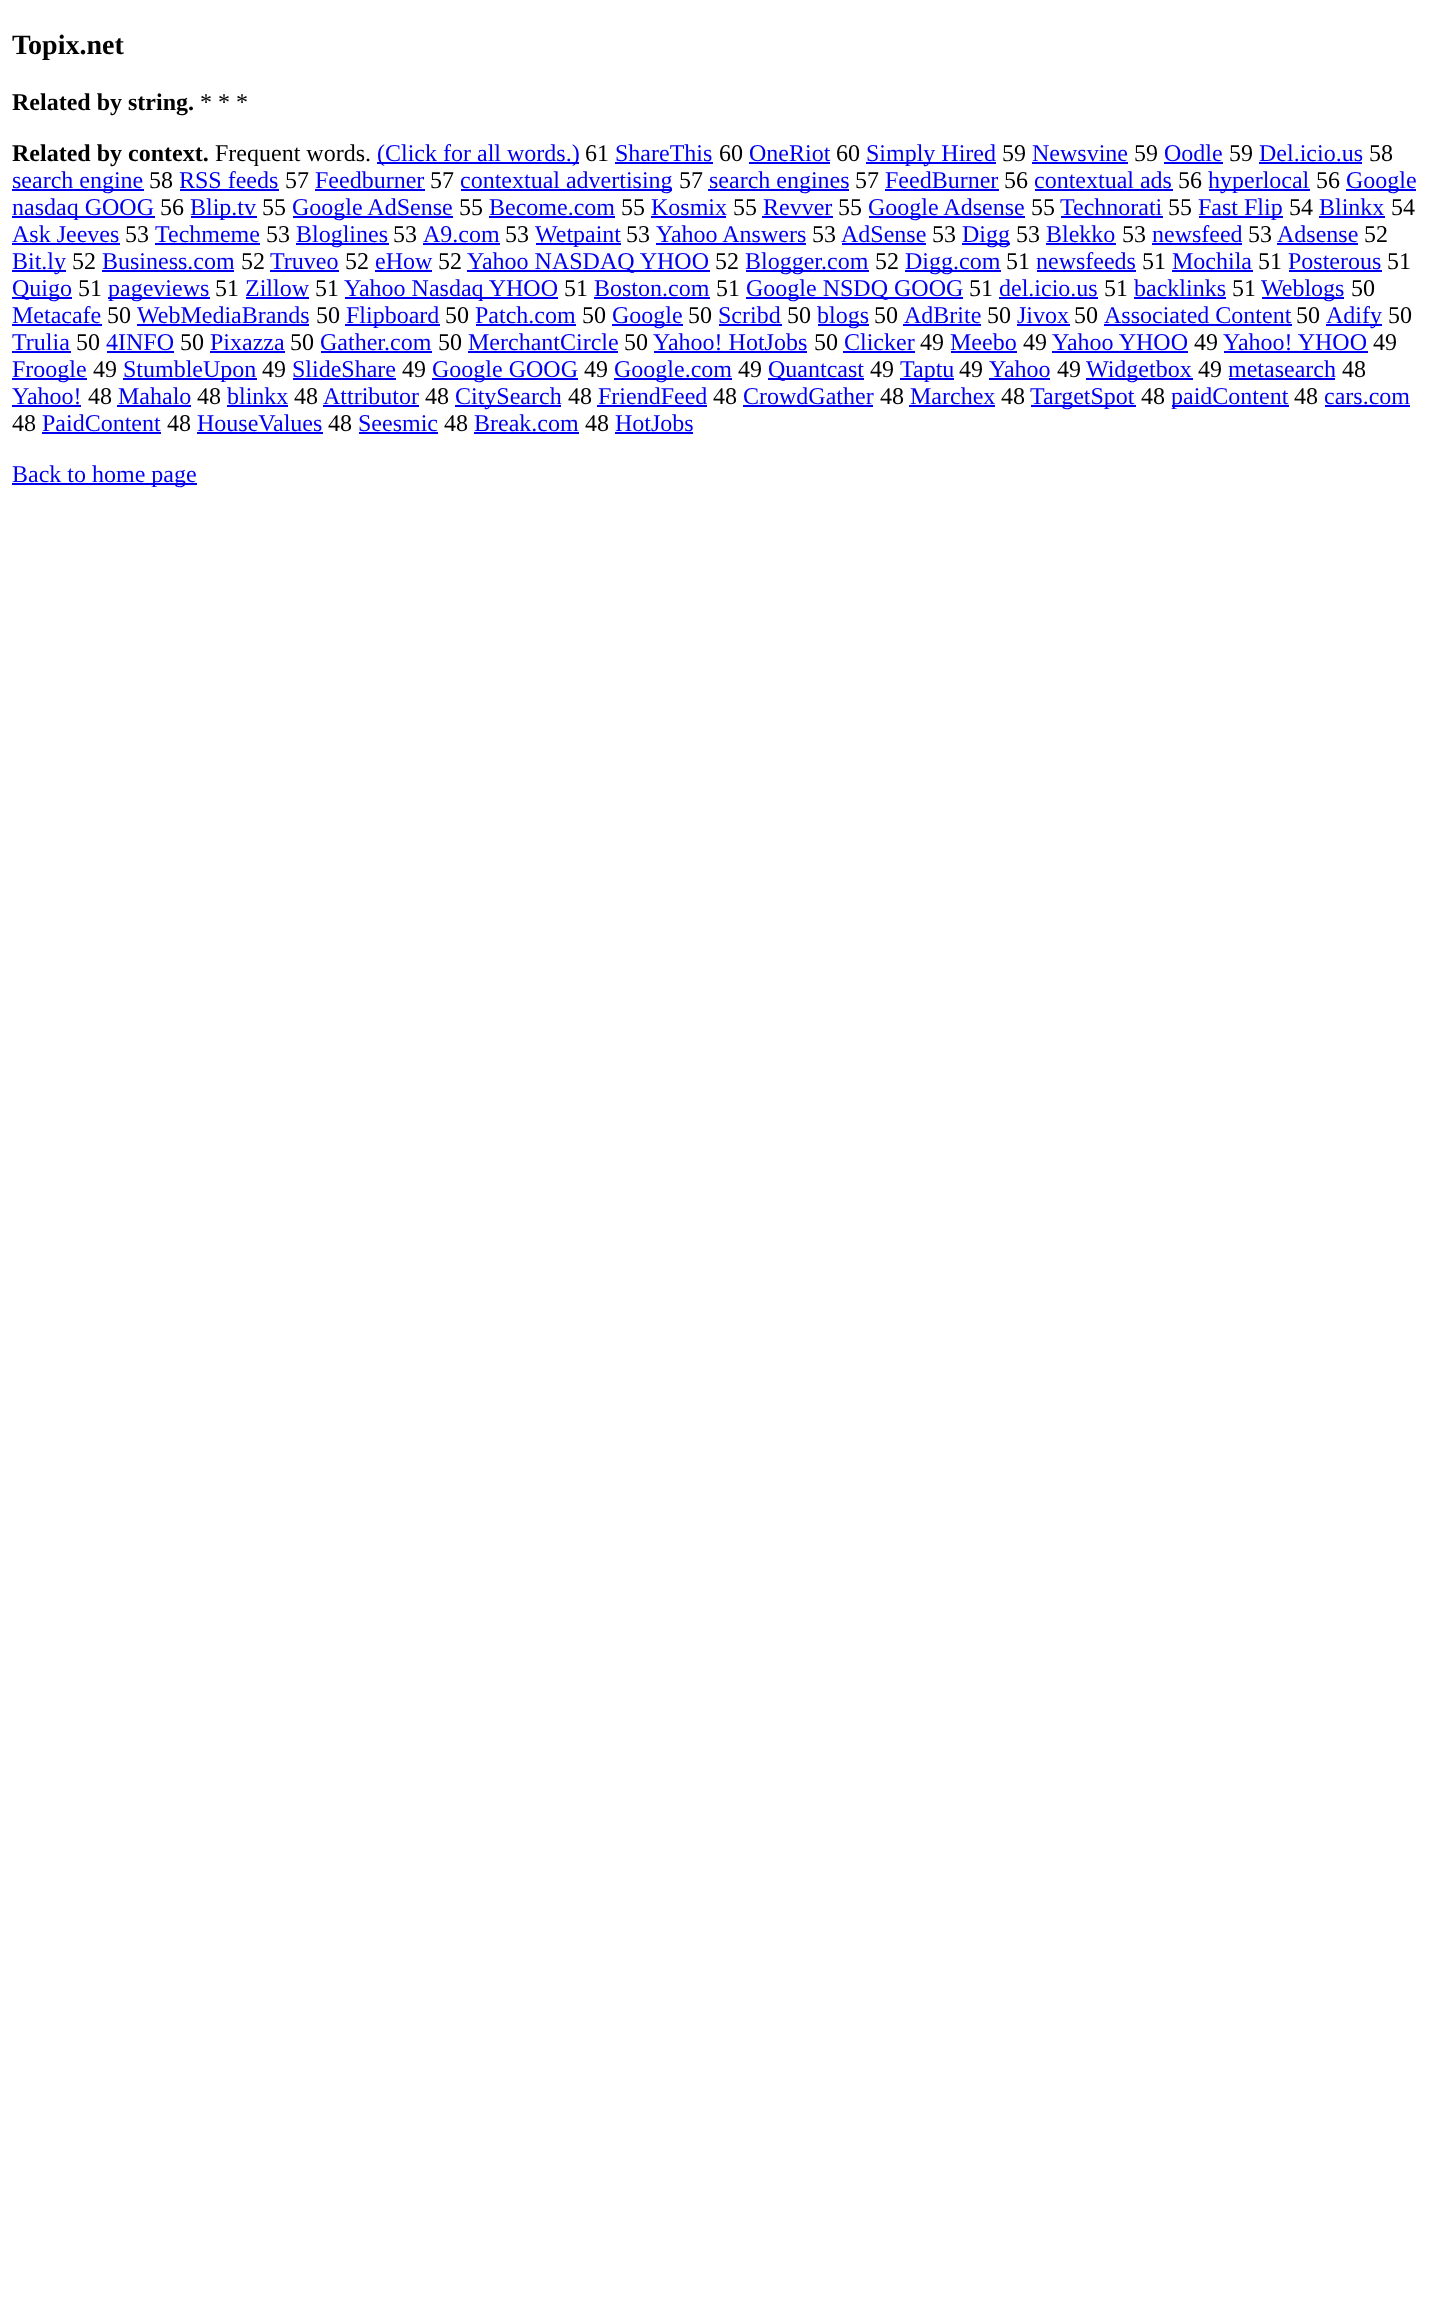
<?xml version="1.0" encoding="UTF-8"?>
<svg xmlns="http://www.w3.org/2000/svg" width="1442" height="2316">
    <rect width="100%" height="100%" fill="#FFFFFF"/>
    <text x="12" y="54" font-family="Liberation Serif" font-size="28" font-weight="700" fill="#000000">Topix.net</text>
    <text x="12" y="110" font-family="Liberation Serif" font-size="24" font-weight="700" fill="#000000">Related by string.</text>
    <text x="200" y="110" font-family="Liberation Serif" font-size="24" fill="#000000">* * *</text>
    <text x="12" y="161" font-family="Liberation Serif" font-size="24" font-weight="700" fill="#000000">Related by context.</text>
    <text x="215" y="161" font-family="Liberation Serif" font-size="24" fill="#000000">Frequent words.</text>
    <rect x="377" y="162" width="202" height="2" fill="#0000EE"/>
    <text x="377" y="161" font-family="Liberation Serif" font-size="24" fill="#0000EE">(Click for all words.)</text>
    <text x="585" y="161" font-family="Liberation Serif" font-size="24" fill="#000000">61</text>
    <text x="615" y="161" font-family="Liberation Serif" font-size="24" fill="#0000EE">ShareThis</text>
    <rect x="615" y="162" width="98" height="2" fill="#0000EE"/>
    <text x="719" y="161" font-family="Liberation Serif" font-size="24" fill="#000000">60</text>
    <text x="749" y="161" font-family="Liberation Serif" font-size="24" fill="#0000EE">OneRiot</text>
    <rect x="749" y="162" width="81" height="2" fill="#0000EE"/>
    <text x="836" y="161" font-family="Liberation Serif" font-size="24" fill="#000000">60</text>
    <rect x="866" y="162" width="130" height="2" fill="#0000EE"/>
    <text x="866" y="161" font-family="Liberation Serif" font-size="24" fill="#0000EE">Simply Hired</text>
    <text x="1002" y="161" font-family="Liberation Serif" font-size="24" fill="#000000">59</text>
    <text x="1032" y="161" font-family="Liberation Serif" font-size="24" fill="#0000EE">Newsvine</text>
    <rect x="1032" y="162" width="96" height="2" fill="#0000EE"/>
    <text x="1134" y="161" font-family="Liberation Serif" font-size="24" fill="#000000">59</text>
    <text x="1164" y="161" font-family="Liberation Serif" font-size="24" fill="#0000EE">Oodle</text>
    <rect x="1164" y="162" width="59" height="2" fill="#0000EE"/>
    <text x="1229" y="161" font-family="Liberation Serif" font-size="24" fill="#000000">59</text>
    <text x="1259" y="161" font-family="Liberation Serif" font-size="24" fill="#0000EE">Del.icio.us</text>
    <rect x="1259" y="162" width="103" height="2" fill="#0000EE"/>
    <text x="1369" y="161" font-family="Liberation Serif" font-size="24" fill="#000000">58</text>
    <rect x="12" y="189" width="132" height="2" fill="#0000EE"/>
    <text x="12" y="188" font-family="Liberation Serif" font-size="24" fill="#0000EE">search engine</text>
    <text x="149" y="188" font-family="Liberation Serif" font-size="24" fill="#000000">58</text>
    <text x="179" y="188" font-family="Liberation Serif" font-size="24" fill="#0000EE">RSS feeds</text>
    <rect x="180" y="189" width="99" height="2" fill="#0000EE"/>
    <text x="285" y="188" font-family="Liberation Serif" font-size="24" fill="#000000">57</text>
    <text x="315" y="188" font-family="Liberation Serif" font-size="24" fill="#0000EE">Feedburner</text>
    <rect x="315" y="189" width="110" height="2" fill="#0000EE"/>
    <text x="430" y="188" font-family="Liberation Serif" font-size="24" fill="#000000">57</text>
    <rect x="461" y="189" width="211" height="2" fill="#0000EE"/>
    <text x="460" y="188" font-family="Liberation Serif" font-size="24" fill="#0000EE">contextual advertising</text>
    <text x="679" y="188" font-family="Liberation Serif" font-size="24" fill="#000000">57</text>
    <rect x="708" y="189" width="141" height="2" fill="#0000EE"/>
    <text x="709" y="188" font-family="Liberation Serif" font-size="24" fill="#0000EE">search engines</text>
    <text x="855" y="188" font-family="Liberation Serif" font-size="24" fill="#000000">57</text>
    <text x="885" y="188" font-family="Liberation Serif" font-size="24" fill="#0000EE">FeedBurner</text>
    <rect x="885" y="189" width="114" height="2" fill="#0000EE"/>
    <text x="1004" y="188" font-family="Liberation Serif" font-size="24" fill="#000000">56</text>
    <text x="1034" y="188" font-family="Liberation Serif" font-size="24" fill="#0000EE">contextual ads</text>
    <rect x="1035" y="189" width="138" height="2" fill="#0000EE"/>
    <text x="1178" y="188" font-family="Liberation Serif" font-size="24" fill="#000000">56</text>
    <rect x="1209" y="189" width="101" height="2" fill="#0000EE"/>
    <text x="1208" y="188" font-family="Liberation Serif" font-size="24" fill="#0000EE">hyperlocal</text>
    <text x="1316" y="188" font-family="Liberation Serif" font-size="24" fill="#000000">56</text>
    <rect x="1346" y="189" width="70" height="2" fill="#0000EE"/>
    <text x="1346" y="188" font-family="Liberation Serif" font-size="24" fill="#0000EE">Google</text>
    <rect x="12" y="216" width="143" height="2" fill="#0000EE"/>
    <text x="12" y="215" font-family="Liberation Serif" font-size="24" fill="#0000EE">nasdaq GOOG</text>
    <text x="160" y="215" font-family="Liberation Serif" font-size="24" fill="#000000">56</text>
    <rect x="191" y="216" width="66" height="2" fill="#0000EE"/>
    <text x="190" y="215" font-family="Liberation Serif" font-size="24" fill="#0000EE">Blip.tv</text>
    <text x="262" y="215" font-family="Liberation Serif" font-size="24" fill="#000000">55</text>
    <rect x="293" y="216" width="160" height="2" fill="#0000EE"/>
    <text x="292" y="215" font-family="Liberation Serif" font-size="24" fill="#0000EE">Google AdSense</text>
    <text x="459" y="215" font-family="Liberation Serif" font-size="24" fill="#000000">55</text>
    <text x="489" y="215" font-family="Liberation Serif" font-size="24" fill="#0000EE">Become.com</text>
    <rect x="489" y="216" width="126" height="2" fill="#0000EE"/>
    <text x="621" y="215" font-family="Liberation Serif" font-size="24" fill="#000000">55</text>
    <text x="651" y="215" font-family="Liberation Serif" font-size="24" fill="#0000EE">Kosmix</text>
    <rect x="651" y="216" width="75" height="2" fill="#0000EE"/>
    <text x="733" y="215" font-family="Liberation Serif" font-size="24" fill="#000000">55</text>
    <text x="763" y="215" font-family="Liberation Serif" font-size="24" fill="#0000EE">Revver</text>
    <rect x="762" y="216" width="71" height="2" fill="#0000EE"/>
    <text x="838" y="215" font-family="Liberation Serif" font-size="24" fill="#000000">55</text>
    <rect x="869" y="216" width="156" height="2" fill="#0000EE"/>
    <text x="868" y="215" font-family="Liberation Serif" font-size="24" fill="#0000EE">Google Adsense</text>
    <text x="1031" y="215" font-family="Liberation Serif" font-size="24" fill="#000000">55</text>
    <text x="1060" y="215" font-family="Liberation Serif" font-size="24" fill="#0000EE">Technorati</text>
    <rect x="1061" y="216" width="102" height="2" fill="#0000EE"/>
    <text x="1168" y="215" font-family="Liberation Serif" font-size="24" fill="#000000">55</text>
    <rect x="1199" y="216" width="84" height="2" fill="#0000EE"/>
    <text x="1198" y="215" font-family="Liberation Serif" font-size="24" fill="#0000EE">Fast Flip</text>
    <text x="1289" y="215" font-family="Liberation Serif" font-size="24" fill="#000000">54</text>
    <text x="1319" y="215" font-family="Liberation Serif" font-size="24" fill="#0000EE">Blinkx</text>
    <rect x="1319" y="216" width="66" height="2" fill="#0000EE"/>
    <text x="1391" y="215" font-family="Liberation Serif" font-size="24" fill="#000000">54</text>
    <text x="12" y="242" font-family="Liberation Serif" font-size="24" fill="#0000EE">Ask Jeeves</text>
    <rect x="12" y="243" width="108" height="2" fill="#0000EE"/>
    <text x="125" y="242" font-family="Liberation Serif" font-size="24" fill="#000000">53</text>
    <text x="155" y="242" font-family="Liberation Serif" font-size="24" fill="#0000EE">Techmeme</text>
    <rect x="155" y="243" width="105" height="2" fill="#0000EE"/>
    <text x="266" y="242" font-family="Liberation Serif" font-size="24" fill="#000000">53</text>
    <rect x="296" y="243" width="93" height="2" fill="#0000EE"/>
    <text x="296" y="242" font-family="Liberation Serif" font-size="24" fill="#0000EE">Bloglines</text>
    <text x="393" y="242" font-family="Liberation Serif" font-size="24" fill="#000000">53</text>
    <text x="423" y="242" font-family="Liberation Serif" font-size="24" fill="#0000EE">A9.com</text>
    <rect x="423" y="243" width="77" height="2" fill="#0000EE"/>
    <text x="505" y="242" font-family="Liberation Serif" font-size="24" fill="#000000">53</text>
    <rect x="536" y="243" width="85" height="2" fill="#0000EE"/>
    <text x="535" y="242" font-family="Liberation Serif" font-size="24" fill="#0000EE">Wetpaint</text>
    <text x="626" y="242" font-family="Liberation Serif" font-size="24" fill="#000000">53</text>
    <text x="656" y="242" font-family="Liberation Serif" font-size="24" fill="#0000EE">Yahoo Answers</text>
    <rect x="656" y="243" width="150" height="2" fill="#0000EE"/>
    <text x="812" y="242" font-family="Liberation Serif" font-size="24" fill="#000000">53</text>
    <text x="841" y="242" font-family="Liberation Serif" font-size="24" fill="#0000EE">AdSense</text>
    <rect x="842" y="243" width="84" height="2" fill="#0000EE"/>
    <text x="932" y="242" font-family="Liberation Serif" font-size="24" fill="#000000">53</text>
    <rect x="962" y="243" width="48" height="2" fill="#0000EE"/>
    <text x="962" y="242" font-family="Liberation Serif" font-size="24" fill="#0000EE">Digg</text>
    <text x="1016" y="242" font-family="Liberation Serif" font-size="24" fill="#000000">53</text>
    <text x="1046" y="242" font-family="Liberation Serif" font-size="24" fill="#0000EE">Blekko</text>
    <rect x="1046" y="243" width="70" height="2" fill="#0000EE"/>
    <text x="1122" y="242" font-family="Liberation Serif" font-size="24" fill="#000000">53</text>
    <text x="1152" y="242" font-family="Liberation Serif" font-size="24" fill="#0000EE">newsfeed</text>
    <rect x="1152" y="243" width="90" height="2" fill="#0000EE"/>
    <text x="1248" y="242" font-family="Liberation Serif" font-size="24" fill="#000000">53</text>
    <text x="1277" y="242" font-family="Liberation Serif" font-size="24" fill="#0000EE">Adsense</text>
    <rect x="1277" y="243" width="81" height="2" fill="#0000EE"/>
    <text x="1364" y="242" font-family="Liberation Serif" font-size="24" fill="#000000">52</text>
    <rect x="12" y="270" width="54" height="2" fill="#0000EE"/>
    <text x="12" y="269" font-family="Liberation Serif" font-size="24" fill="#0000EE">Bit.ly</text>
    <text x="72" y="269" font-family="Liberation Serif" font-size="24" fill="#000000">52</text>
    <text x="102" y="269" font-family="Liberation Serif" font-size="24" fill="#0000EE">Business.com</text>
    <rect x="102" y="270" width="132" height="2" fill="#0000EE"/>
    <text x="241" y="269" font-family="Liberation Serif" font-size="24" fill="#000000">52</text>
    <text x="270" y="269" font-family="Liberation Serif" font-size="24" fill="#0000EE">Truveo</text>
    <rect x="270" y="270" width="69" height="2" fill="#0000EE"/>
    <text x="345" y="269" font-family="Liberation Serif" font-size="24" fill="#000000">52</text>
    <text x="375" y="269" font-family="Liberation Serif" font-size="24" fill="#0000EE">eHow</text>
    <rect x="375" y="270" width="57" height="2" fill="#0000EE"/>
    <text x="438" y="269" font-family="Liberation Serif" font-size="24" fill="#000000">52</text>
    <rect x="467" y="270" width="243" height="2" fill="#0000EE"/>
    <text x="467" y="269" font-family="Liberation Serif" font-size="24" fill="#0000EE">Yahoo NASDAQ YHOO</text>
    <text x="715" y="269" font-family="Liberation Serif" font-size="24" fill="#000000">52</text>
    <rect x="746" y="270" width="123" height="2" fill="#0000EE"/>
    <text x="745" y="269" font-family="Liberation Serif" font-size="24" fill="#0000EE">Blogger.com</text>
    <text x="875" y="269" font-family="Liberation Serif" font-size="24" fill="#000000">52</text>
    <rect x="905" y="270" width="96" height="2" fill="#0000EE"/>
    <text x="905" y="269" font-family="Liberation Serif" font-size="24" fill="#0000EE">Digg.com</text>
    <text x="1006" y="269" font-family="Liberation Serif" font-size="24" fill="#000000">51</text>
    <text x="1036" y="269" font-family="Liberation Serif" font-size="24" fill="#0000EE">newsfeeds</text>
    <rect x="1037" y="270" width="99" height="2" fill="#0000EE"/>
    <text x="1142" y="269" font-family="Liberation Serif" font-size="24" fill="#000000">51</text>
    <text x="1172" y="269" font-family="Liberation Serif" font-size="24" fill="#0000EE">Mochila</text>
    <rect x="1172" y="270" width="81" height="2" fill="#0000EE"/>
    <text x="1258" y="269" font-family="Liberation Serif" font-size="24" fill="#000000">51</text>
    <text x="1288" y="269" font-family="Liberation Serif" font-size="24" fill="#0000EE">Posterous</text>
    <rect x="1289" y="270" width="93" height="2" fill="#0000EE"/>
    <text x="1387" y="269" font-family="Liberation Serif" font-size="24" fill="#000000">51</text>
    <rect x="12" y="297" width="60" height="2" fill="#0000EE"/>
    <text x="12" y="296" font-family="Liberation Serif" font-size="24" fill="#0000EE">Quigo</text>
    <text x="78" y="296" font-family="Liberation Serif" font-size="24" fill="#000000">51</text>
    <rect x="108" y="297" width="102" height="2" fill="#0000EE"/>
    <text x="108" y="296" font-family="Liberation Serif" font-size="24" fill="#0000EE">pageviews</text>
    <text x="215" y="296" font-family="Liberation Serif" font-size="24" fill="#000000">51</text>
    <text x="245" y="296" font-family="Liberation Serif" font-size="24" fill="#0000EE">Zillow</text>
    <rect x="246" y="297" width="63" height="2" fill="#0000EE"/>
    <text x="315" y="296" font-family="Liberation Serif" font-size="24" fill="#000000">51</text>
    <rect x="345" y="297" width="213" height="2" fill="#0000EE"/>
    <text x="344" y="296" font-family="Liberation Serif" font-size="24" fill="#0000EE">Yahoo Nasdaq YHOO</text>
    <text x="564" y="296" font-family="Liberation Serif" font-size="24" fill="#000000">51</text>
    <text x="594" y="296" font-family="Liberation Serif" font-size="24" fill="#0000EE">Boston.com</text>
    <rect x="594" y="297" width="116" height="2" fill="#0000EE"/>
    <text x="716" y="296" font-family="Liberation Serif" font-size="24" fill="#000000">51</text>
    <rect x="746" y="297" width="217" height="2" fill="#0000EE"/>
    <text x="746" y="296" font-family="Liberation Serif" font-size="24" fill="#0000EE">Google NSDQ GOOG</text>
    <text x="969" y="296" font-family="Liberation Serif" font-size="24" fill="#000000">51</text>
    <text x="999" y="296" font-family="Liberation Serif" font-size="24" fill="#0000EE">del.icio.us</text>
    <rect x="999" y="297" width="99" height="2" fill="#0000EE"/>
    <text x="1104" y="296" font-family="Liberation Serif" font-size="24" fill="#000000">51</text>
    <text x="1134" y="296" font-family="Liberation Serif" font-size="24" fill="#0000EE">backlinks</text>
    <rect x="1134" y="297" width="92" height="2" fill="#0000EE"/>
    <text x="1232" y="296" font-family="Liberation Serif" font-size="24" fill="#000000">51</text>
    <rect x="1262" y="297" width="82" height="2" fill="#0000EE"/>
    <text x="1261" y="296" font-family="Liberation Serif" font-size="24" fill="#0000EE">Weblogs</text>
    <text x="1351" y="296" font-family="Liberation Serif" font-size="24" fill="#000000">50</text>
    <text x="12" y="323" font-family="Liberation Serif" font-size="24" fill="#0000EE">Metacafe</text>
    <rect x="12" y="324" width="90" height="2" fill="#0000EE"/>
    <text x="107" y="323" font-family="Liberation Serif" font-size="24" fill="#000000">50</text>
    <text x="137" y="323" font-family="Liberation Serif" font-size="24" fill="#0000EE">WebMediaBrands</text>
    <rect x="137" y="324" width="172" height="2" fill="#0000EE"/>
    <text x="316" y="323" font-family="Liberation Serif" font-size="24" fill="#000000">50</text>
    <rect x="345" y="324" width="95" height="2" fill="#0000EE"/>
    <text x="346" y="323" font-family="Liberation Serif" font-size="24" fill="#0000EE">Flipboard</text>
    <text x="445" y="323" font-family="Liberation Serif" font-size="24" fill="#000000">50</text>
    <text x="475" y="323" font-family="Liberation Serif" font-size="24" fill="#0000EE">Patch.com</text>
    <rect x="476" y="324" width="100" height="2" fill="#0000EE"/>
    <text x="582" y="323" font-family="Liberation Serif" font-size="24" fill="#000000">50</text>
    <rect x="612" y="324" width="71" height="2" fill="#0000EE"/>
    <text x="612" y="323" font-family="Liberation Serif" font-size="24" fill="#0000EE">Google</text>
    <text x="688" y="323" font-family="Liberation Serif" font-size="24" fill="#000000">50</text>
    <text x="718" y="323" font-family="Liberation Serif" font-size="24" fill="#0000EE">Scribd</text>
    <rect x="719" y="324" width="63" height="2" fill="#0000EE"/>
    <text x="787" y="323" font-family="Liberation Serif" font-size="24" fill="#000000">50</text>
    <rect x="818" y="324" width="51" height="2" fill="#0000EE"/>
    <text x="817" y="323" font-family="Liberation Serif" font-size="24" fill="#0000EE">blogs</text>
    <text x="874" y="323" font-family="Liberation Serif" font-size="24" fill="#000000">50</text>
    <text x="904" y="323" font-family="Liberation Serif" font-size="24" fill="#0000EE">AdBrite</text>
    <rect x="903" y="324" width="78" height="2" fill="#0000EE"/>
    <text x="987" y="323" font-family="Liberation Serif" font-size="24" fill="#000000">50</text>
    <text x="1017" y="323" font-family="Liberation Serif" font-size="24" fill="#0000EE">Jivox</text>
    <rect x="1017" y="324" width="53" height="2" fill="#0000EE"/>
    <text x="1074" y="323" font-family="Liberation Serif" font-size="24" fill="#000000">50</text>
    <text x="1104" y="323" font-family="Liberation Serif" font-size="24" fill="#0000EE">Associated Content</text>
    <rect x="1104" y="324" width="188" height="2" fill="#0000EE"/>
    <text x="1296" y="323" font-family="Liberation Serif" font-size="24" fill="#000000">50</text>
    <rect x="1326" y="324" width="56" height="2" fill="#0000EE"/>
    <text x="1326" y="323" font-family="Liberation Serif" font-size="24" fill="#0000EE">Adify</text>
    <text x="1388" y="323" font-family="Liberation Serif" font-size="24" fill="#000000">50</text>
    <text x="12" y="350" font-family="Liberation Serif" font-size="24" fill="#0000EE">Trulia</text>
    <rect x="12" y="351" width="59" height="2" fill="#0000EE"/>
    <text x="76" y="350" font-family="Liberation Serif" font-size="24" fill="#000000">50</text>
    <text x="106" y="350" font-family="Liberation Serif" font-size="24" fill="#0000EE">4INFO</text>
    <rect x="107" y="351" width="67" height="2" fill="#0000EE"/>
    <text x="180" y="350" font-family="Liberation Serif" font-size="24" fill="#000000">50</text>
    <text x="210" y="350" font-family="Liberation Serif" font-size="24" fill="#0000EE">Pixazza</text>
    <rect x="210" y="351" width="75" height="2" fill="#0000EE"/>
    <text x="290" y="350" font-family="Liberation Serif" font-size="24" fill="#000000">50</text>
    <text x="320" y="350" font-family="Liberation Serif" font-size="24" fill="#0000EE">Gather.com</text>
    <rect x="321" y="351" width="111" height="2" fill="#0000EE"/>
    <text x="438" y="350" font-family="Liberation Serif" font-size="24" fill="#000000">50</text>
    <text x="468" y="350" font-family="Liberation Serif" font-size="24" fill="#0000EE">MerchantCircle</text>
    <rect x="468" y="351" width="150" height="2" fill="#0000EE"/>
    <text x="624" y="350" font-family="Liberation Serif" font-size="24" fill="#000000">50</text>
    <text x="653" y="350" font-family="Liberation Serif" font-size="24" fill="#0000EE">Yahoo! HotJobs</text>
    <rect x="654" y="351" width="153" height="2" fill="#0000EE"/>
    <text x="814" y="350" font-family="Liberation Serif" font-size="24" fill="#000000">50</text>
    <text x="844" y="350" font-family="Liberation Serif" font-size="24" fill="#0000EE">Clicker</text>
    <rect x="843" y="351" width="72" height="2" fill="#0000EE"/>
    <text x="920" y="350" font-family="Liberation Serif" font-size="24" fill="#000000">49</text>
    <text x="950" y="350" font-family="Liberation Serif" font-size="24" fill="#0000EE">Meebo</text>
    <rect x="951" y="351" width="66" height="2" fill="#0000EE"/>
    <text x="1023" y="350" font-family="Liberation Serif" font-size="24" fill="#000000">49</text>
    <text x="1052" y="350" font-family="Liberation Serif" font-size="24" fill="#0000EE">Yahoo YHOO</text>
    <rect x="1052" y="351" width="136" height="2" fill="#0000EE"/>
    <text x="1194" y="350" font-family="Liberation Serif" font-size="24" fill="#000000">49</text>
    <text x="1223" y="350" font-family="Liberation Serif" font-size="24" fill="#0000EE">Yahoo! YHOO</text>
    <rect x="1224" y="351" width="144" height="2" fill="#0000EE"/>
    <text x="1373" y="350" font-family="Liberation Serif" font-size="24" fill="#000000">49</text>
    <rect x="12" y="378" width="75" height="2" fill="#0000EE"/>
    <text x="12" y="377" font-family="Liberation Serif" font-size="24" fill="#0000EE">Froogle</text>
    <text x="93" y="377" font-family="Liberation Serif" font-size="24" fill="#000000">49</text>
    <rect x="123" y="378" width="134" height="2" fill="#0000EE"/>
    <text x="123" y="377" font-family="Liberation Serif" font-size="24" fill="#0000EE">StumbleUpon</text>
    <text x="262" y="377" font-family="Liberation Serif" font-size="24" fill="#000000">49</text>
    <text x="292" y="377" font-family="Liberation Serif" font-size="24" fill="#0000EE">SlideShare</text>
    <rect x="293" y="378" width="103" height="2" fill="#0000EE"/>
    <text x="402" y="377" font-family="Liberation Serif" font-size="24" fill="#000000">49</text>
    <rect x="432" y="378" width="146" height="2" fill="#0000EE"/>
    <text x="432" y="377" font-family="Liberation Serif" font-size="24" fill="#0000EE">Google GOOG</text>
    <text x="584" y="377" font-family="Liberation Serif" font-size="24" fill="#000000">49</text>
    <rect x="614" y="378" width="118" height="2" fill="#0000EE"/>
    <text x="614" y="377" font-family="Liberation Serif" font-size="24" fill="#0000EE">Google.com</text>
    <text x="738" y="377" font-family="Liberation Serif" font-size="24" fill="#000000">49</text>
    <rect x="768" y="378" width="96" height="2" fill="#0000EE"/>
    <text x="768" y="377" font-family="Liberation Serif" font-size="24" fill="#0000EE">Quantcast</text>
    <text x="870" y="377" font-family="Liberation Serif" font-size="24" fill="#000000">49</text>
    <rect x="900" y="378" width="54" height="2" fill="#0000EE"/>
    <text x="900" y="377" font-family="Liberation Serif" font-size="24" fill="#0000EE">Taptu</text>
    <text x="959" y="377" font-family="Liberation Serif" font-size="24" fill="#000000">49</text>
    <text x="989" y="377" font-family="Liberation Serif" font-size="24" fill="#0000EE">Yahoo</text>
    <rect x="989" y="378" width="61" height="2" fill="#0000EE"/>
    <text x="1057" y="377" font-family="Liberation Serif" font-size="24" fill="#000000">49</text>
    <rect x="1086" y="378" width="107" height="2" fill="#0000EE"/>
    <text x="1086" y="377" font-family="Liberation Serif" font-size="24" fill="#0000EE">Widgetbox</text>
    <text x="1198" y="377" font-family="Liberation Serif" font-size="24" fill="#000000">49</text>
    <text x="1228" y="377" font-family="Liberation Serif" font-size="24" fill="#0000EE">metasearch</text>
    <rect x="1229" y="378" width="106" height="2" fill="#0000EE"/>
    <text x="1342" y="377" font-family="Liberation Serif" font-size="24" fill="#000000">48</text>
    <text x="12" y="404" font-family="Liberation Serif" font-size="24" fill="#0000EE">Yahoo!</text>
    <rect x="12" y="405" width="69" height="2" fill="#0000EE"/>
    <text x="88" y="404" font-family="Liberation Serif" font-size="24" fill="#000000">48</text>
    <text x="118" y="404" font-family="Liberation Serif" font-size="24" fill="#0000EE">Mahalo</text>
    <rect x="117" y="405" width="74" height="2" fill="#0000EE"/>
    <text x="197" y="404" font-family="Liberation Serif" font-size="24" fill="#000000">48</text>
    <text x="227" y="404" font-family="Liberation Serif" font-size="24" fill="#0000EE">blinkx</text>
    <rect x="227" y="405" width="61" height="2" fill="#0000EE"/>
    <text x="294" y="404" font-family="Liberation Serif" font-size="24" fill="#000000">48</text>
    <text x="323" y="404" font-family="Liberation Serif" font-size="24" fill="#0000EE">Attributor</text>
    <rect x="323" y="405" width="96" height="2" fill="#0000EE"/>
    <text x="425" y="404" font-family="Liberation Serif" font-size="24" fill="#000000">48</text>
    <rect x="455" y="405" width="106" height="2" fill="#0000EE"/>
    <text x="455" y="404" font-family="Liberation Serif" font-size="24" fill="#0000EE">CitySearch</text>
    <text x="568" y="404" font-family="Liberation Serif" font-size="24" fill="#000000">48</text>
    <text x="598" y="404" font-family="Liberation Serif" font-size="24" fill="#0000EE">FriendFeed</text>
    <rect x="597" y="405" width="110" height="2" fill="#0000EE"/>
    <text x="713" y="404" font-family="Liberation Serif" font-size="24" fill="#000000">48</text>
    <text x="743" y="404" font-family="Liberation Serif" font-size="24" fill="#0000EE">CrowdGather</text>
    <rect x="743" y="405" width="130" height="2" fill="#0000EE"/>
    <text x="880" y="404" font-family="Liberation Serif" font-size="24" fill="#000000">48</text>
    <text x="910" y="404" font-family="Liberation Serif" font-size="24" fill="#0000EE">Marchex</text>
    <rect x="909" y="405" width="86" height="2" fill="#0000EE"/>
    <text x="1001" y="404" font-family="Liberation Serif" font-size="24" fill="#000000">48</text>
    <rect x="1031" y="405" width="105" height="2" fill="#0000EE"/>
    <text x="1030" y="404" font-family="Liberation Serif" font-size="24" fill="#0000EE">TargetSpot</text>
    <text x="1141" y="404" font-family="Liberation Serif" font-size="24" fill="#000000">48</text>
    <rect x="1172" y="405" width="117" height="2" fill="#0000EE"/>
    <text x="1171" y="404" font-family="Liberation Serif" font-size="24" fill="#0000EE">paidContent</text>
    <text x="1294" y="404" font-family="Liberation Serif" font-size="24" fill="#000000">48</text>
    <text x="1324" y="404" font-family="Liberation Serif" font-size="24" fill="#0000EE">cars.com</text>
    <rect x="1325" y="405" width="85" height="2" fill="#0000EE"/>
    <text x="12" y="431" font-family="Liberation Serif" font-size="24" fill="#000000">48</text>
    <text x="42" y="431" font-family="Liberation Serif" font-size="24" fill="#0000EE">PaidContent</text>
    <rect x="42" y="432" width="119" height="2" fill="#0000EE"/>
    <text x="167" y="431" font-family="Liberation Serif" font-size="24" fill="#000000">48</text>
    <text x="197" y="431" font-family="Liberation Serif" font-size="24" fill="#0000EE">HouseValues</text>
    <rect x="197" y="432" width="126" height="2" fill="#0000EE"/>
    <text x="328" y="431" font-family="Liberation Serif" font-size="24" fill="#000000">48</text>
    <text x="358" y="431" font-family="Liberation Serif" font-size="24" fill="#0000EE">Seesmic</text>
    <rect x="359" y="432" width="79" height="2" fill="#0000EE"/>
    <text x="444" y="431" font-family="Liberation Serif" font-size="24" fill="#000000">48</text>
    <text x="474" y="431" font-family="Liberation Serif" font-size="24" fill="#0000EE">Break.com</text>
    <rect x="474" y="432" width="105" height="2" fill="#0000EE"/>
    <text x="585" y="431" font-family="Liberation Serif" font-size="24" fill="#000000">48</text>
    <text x="615" y="431" font-family="Liberation Serif" font-size="24" fill="#0000EE">HotJobs</text>
    <rect x="615" y="432" width="78" height="2" fill="#0000EE"/>
    <rect x="12" y="483" width="185" height="2" fill="#0000EE"/>
    <text x="12" y="482" font-family="Liberation Serif" font-size="24" fill="#0000EE">Back to home page</text>
</svg>
